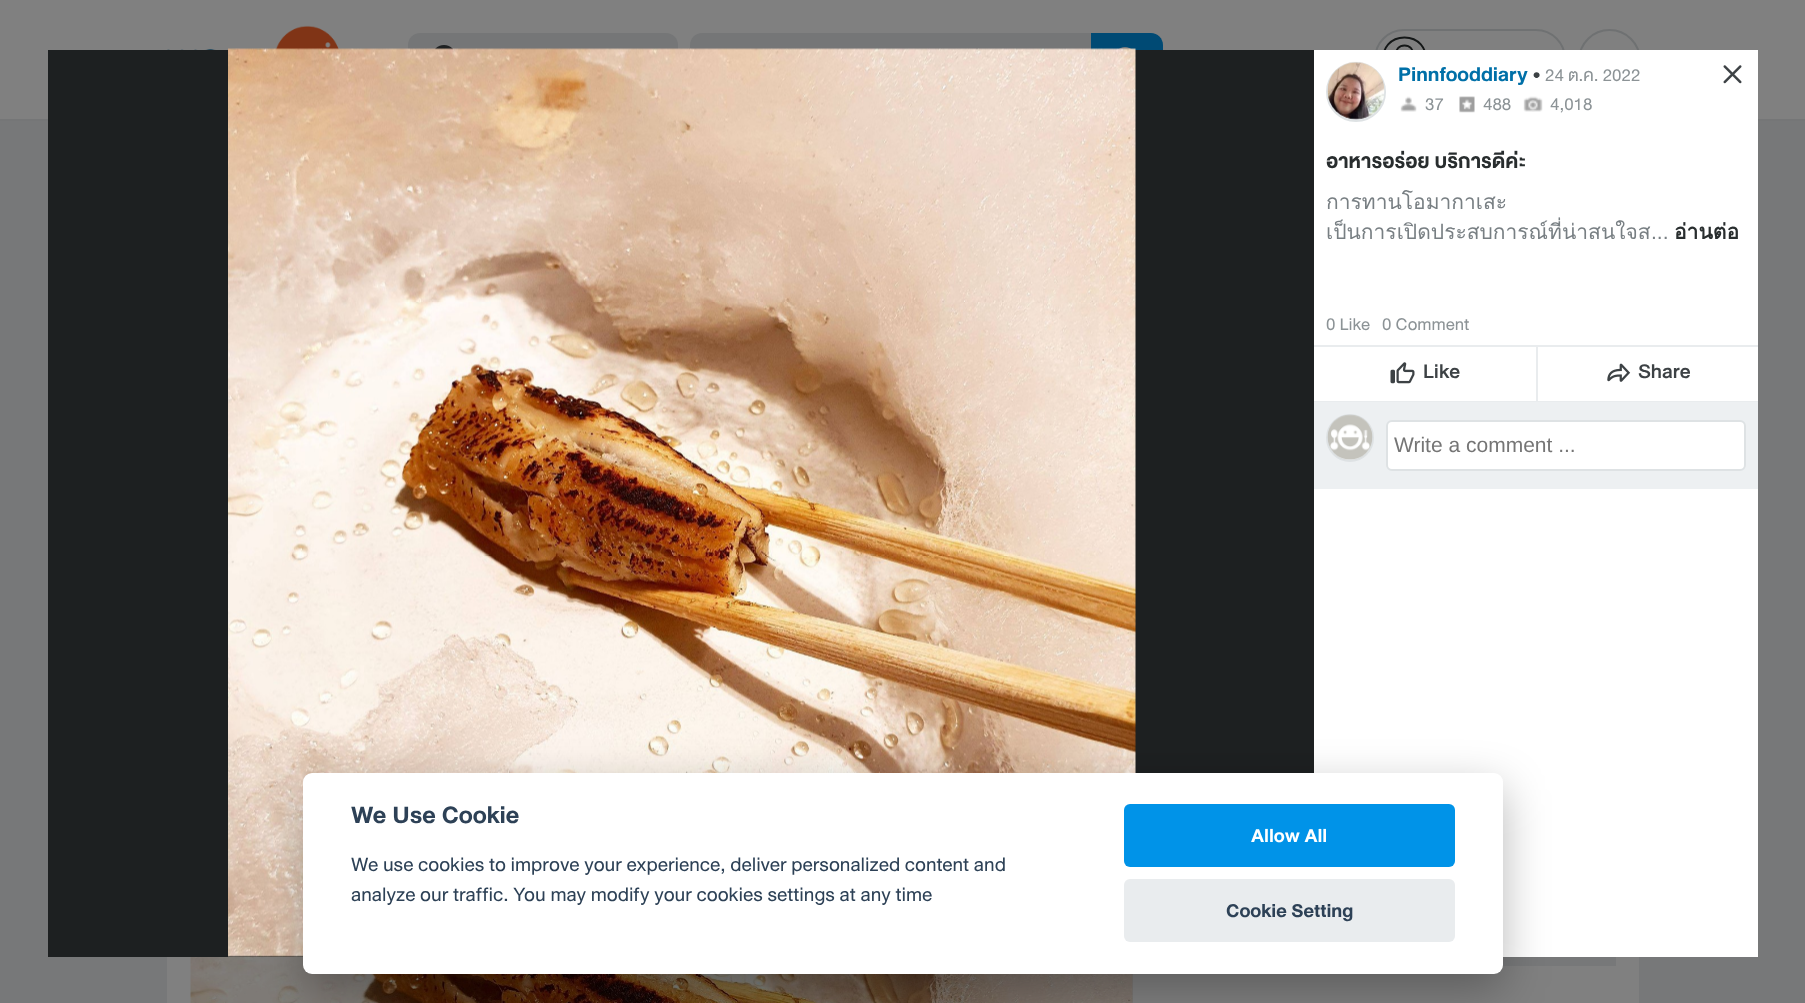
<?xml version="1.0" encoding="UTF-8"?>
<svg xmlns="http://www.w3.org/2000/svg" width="1805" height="1003">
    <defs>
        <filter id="blur1" x="-50%" y="-200%" width="200%" height="500%"><feGaussianBlur stdDeviation="22.5"/></filter>
    </defs>
    <rect width="100%" height="100%" fill="#808080"/>
    <rect x="0" y="119" width="1805" height="2" fill="#757677"/>
    <image x="167" y="25" width="172" height="25" href="img_01.png"/>
    <rect x="408" y="33" width="270" height="54" rx="12" fill="#757677"/>
    <image x="434" y="45" width="20" height="5" href="img_02.png"/>
    <path d="M 702 33 H 1091 V 87 H 702 C 695.5 87 690 81.5 690 75 V 45 C 690 38.5 695.5 33 702 33 Z" fill="#757677"/>
    <path d="M 1091 33 H 1151 C 1157.5 33 1163 38.5 1163 45 V 75 C 1163 81.5 1157.5 87 1151 87 H 1091 Z" fill="#004A74"/>
    <image x="1117" y="47" width="16" height="3" href="img_03.png"/>
    <rect x="1375" y="30" width="190" height="61" rx="29" fill="none" stroke="#6F7172" stroke-width="2"/>
    <path d="M 1404.5 82 C 1433.5 82 1433.5 37.5 1404.5 37.5 C 1375.5 37.5 1375.5 82 1404.5 82 Z M 1404.5 62.5 C 1416 62.5 1416 45.5 1404.5 45.5 C 1393 45.5 1393 62.5 1404.5 62.5 Z" fill="none" stroke="#141717" stroke-width="1.9"/>
    <circle cx="1609.5" cy="60.5" r="30.5" fill="none" stroke="#6F7172" stroke-width="2"/>
    <rect x="0" y="121" width="1805" height="882" fill="#777879"/>
    <rect x="167" y="957" width="1472" height="46" fill="#808080"/>
    <rect x="1132" y="974" width="1" height="29" fill="#777879"/>
    <image x="190" y="957" width="943" height="46" href="img_04.png"/>
    <rect x="1502" y="957" width="114" height="9" fill="#777879"/>
    <rect x="1314" y="50" width="444" height="907" fill="#FFFFFF"/>
    <rect x="48" y="50" width="1266" height="907" fill="#1D2021"/>
    <image x="228" y="48" width="908" height="909" href="img_05.png"/>
    <image x="1723" y="65" width="19" height="19" href="img_06.png"/>
    <circle cx="1356" cy="92" r="29" fill="#EDF0F2" stroke="#DEE2E4" stroke-width="2"/>
    <image x="1327" y="61" width="58" height="59" href="img_07.png"/>
    <text x="1398" y="81" font-family="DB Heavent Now" font-size="21" font-weight="700" fill="#0070A8">Pinnfooddiary</text>
    <text x="1533" y="81" font-family="DB Heavent Now" font-size="21" fill="#3D4245">•</text>
    <text x="1545" y="81" font-family="DB Heavent Now" font-size="18" fill="#8C9396">24 ต.ค. 2022</text>
    <image x="1400" y="96" width="17" height="16" href="img_08.png"/>
    <text x="1425" y="110" font-family="DB Heavent Now" font-size="18" fill="#8C9396">37</text>
    <image x="1459" y="96" width="16" height="17" href="img_09.png"/>
    <text x="1483" y="110" font-family="DB Heavent Now" font-size="18" fill="#8C9396">488</text>
    <image x="1523" y="96" width="20" height="16" href="img_10.png"/>
    <text x="1550" y="110" font-family="DB Heavent Now" font-size="18" fill="#8C9396">4,018</text>
    <text x="1326" y="168" font-family="DB Heavent Now" font-size="21" font-weight="700" fill="#282D2E">อาหารอร่อย บริการดีค่ะ</text>
    <text font-family="Loma" font-size="21" fill="#787F83">
        <tspan x="1326" y="209">การทานโอมากาเสะ</tspan>
        <tspan x="1326" y="239">เป็นการเปิดประสบการณ์ที่น่าสนใจส</tspan>
    </text>
    <text x="1651" y="239" font-family="Liberation Sans" font-size="21" fill="#787F83">...</text>
    <text x="1674" y="239" font-family="Loma" font-size="21" font-weight="700" fill="#282D2E">อ่านต่อ</text>
    <text x="1326" y="330" font-family="DB Heavent Now" font-size="18" fill="#8C9396">0 Like</text>
    <text x="1382" y="330" font-family="DB Heavent Now" font-size="18" fill="#8C9396">0 Comment</text>
    <rect x="1314" y="345" width="444" height="57" fill="#E9ECEE"/>
    <rect x="1314" y="347" width="222" height="54" fill="#FFFFFF"/>
    <image x="1390" y="362" width="25" height="22" href="img_11.png"/>
    <text x="1423" y="378" font-family="DB Heavent Now" font-size="21" font-weight="500" fill="#3D4245">Like</text>
    <rect x="1538" y="347" width="220" height="54" fill="#FFFFFF"/>
    <image x="1607" y="363" width="24" height="19" href="img_12.png"/>
    <text x="1638" y="378" font-family="DB Heavent Now" font-size="21" font-weight="500" fill="#3D4245">Share</text>
    <rect x="1314" y="402" width="444" height="87" fill="#EDF0F2"/>
    <circle cx="1350" cy="438" r="23" fill="none" stroke="#DEE2E4" stroke-width="2"/>
    <image x="1327" y="414" width="46" height="46" href="img_13.png"/>
    <rect x="1387" y="421" width="358" height="49" rx="5" fill="#FFFFFF" stroke="#DEE2E4" stroke-width="2"/>
    <text x="1394" y="452" font-family="Liberation Sans" font-size="21" fill="#757575">Write a comment ...</text>
    <rect x="303" y="788" width="1200" height="201" rx="9" fill="#020203" fill-opacity="0.28" filter="url(#blur1)"/>
    <rect x="303" y="773" width="1200" height="201" rx="9" fill="#FFFFFF"/>
    <text x="351" y="823" font-family="DB Heavent Now" font-size="25.25" font-weight="700" fill="#2D4156">We Use Cookie</text>
    <text font-family="DB Heavent Now" font-size="20.4" fill="#2D4156">
        <tspan x="351" y="871">We use cookies to improve your experience, deliver personalized content and</tspan>
        <tspan x="351" y="901">analyze our traffic. You may modify your cookies settings at any time</tspan>
    </text>
    <rect x="1124" y="804" width="331" height="63" rx="6" fill="#0093E8"/>
    <text x="1251" y="842" font-family="DB Heavent Now" font-size="19.75" font-weight="700" fill="#FFFFFF">Allow All</text>
    <rect x="1124" y="879" width="331" height="63" rx="6" fill="#E9ECEE"/>
    <text x="1226" y="917" font-family="DB Heavent Now" font-size="19.75" font-weight="700" fill="#2D4156">Cookie Setting</text>
</svg>
